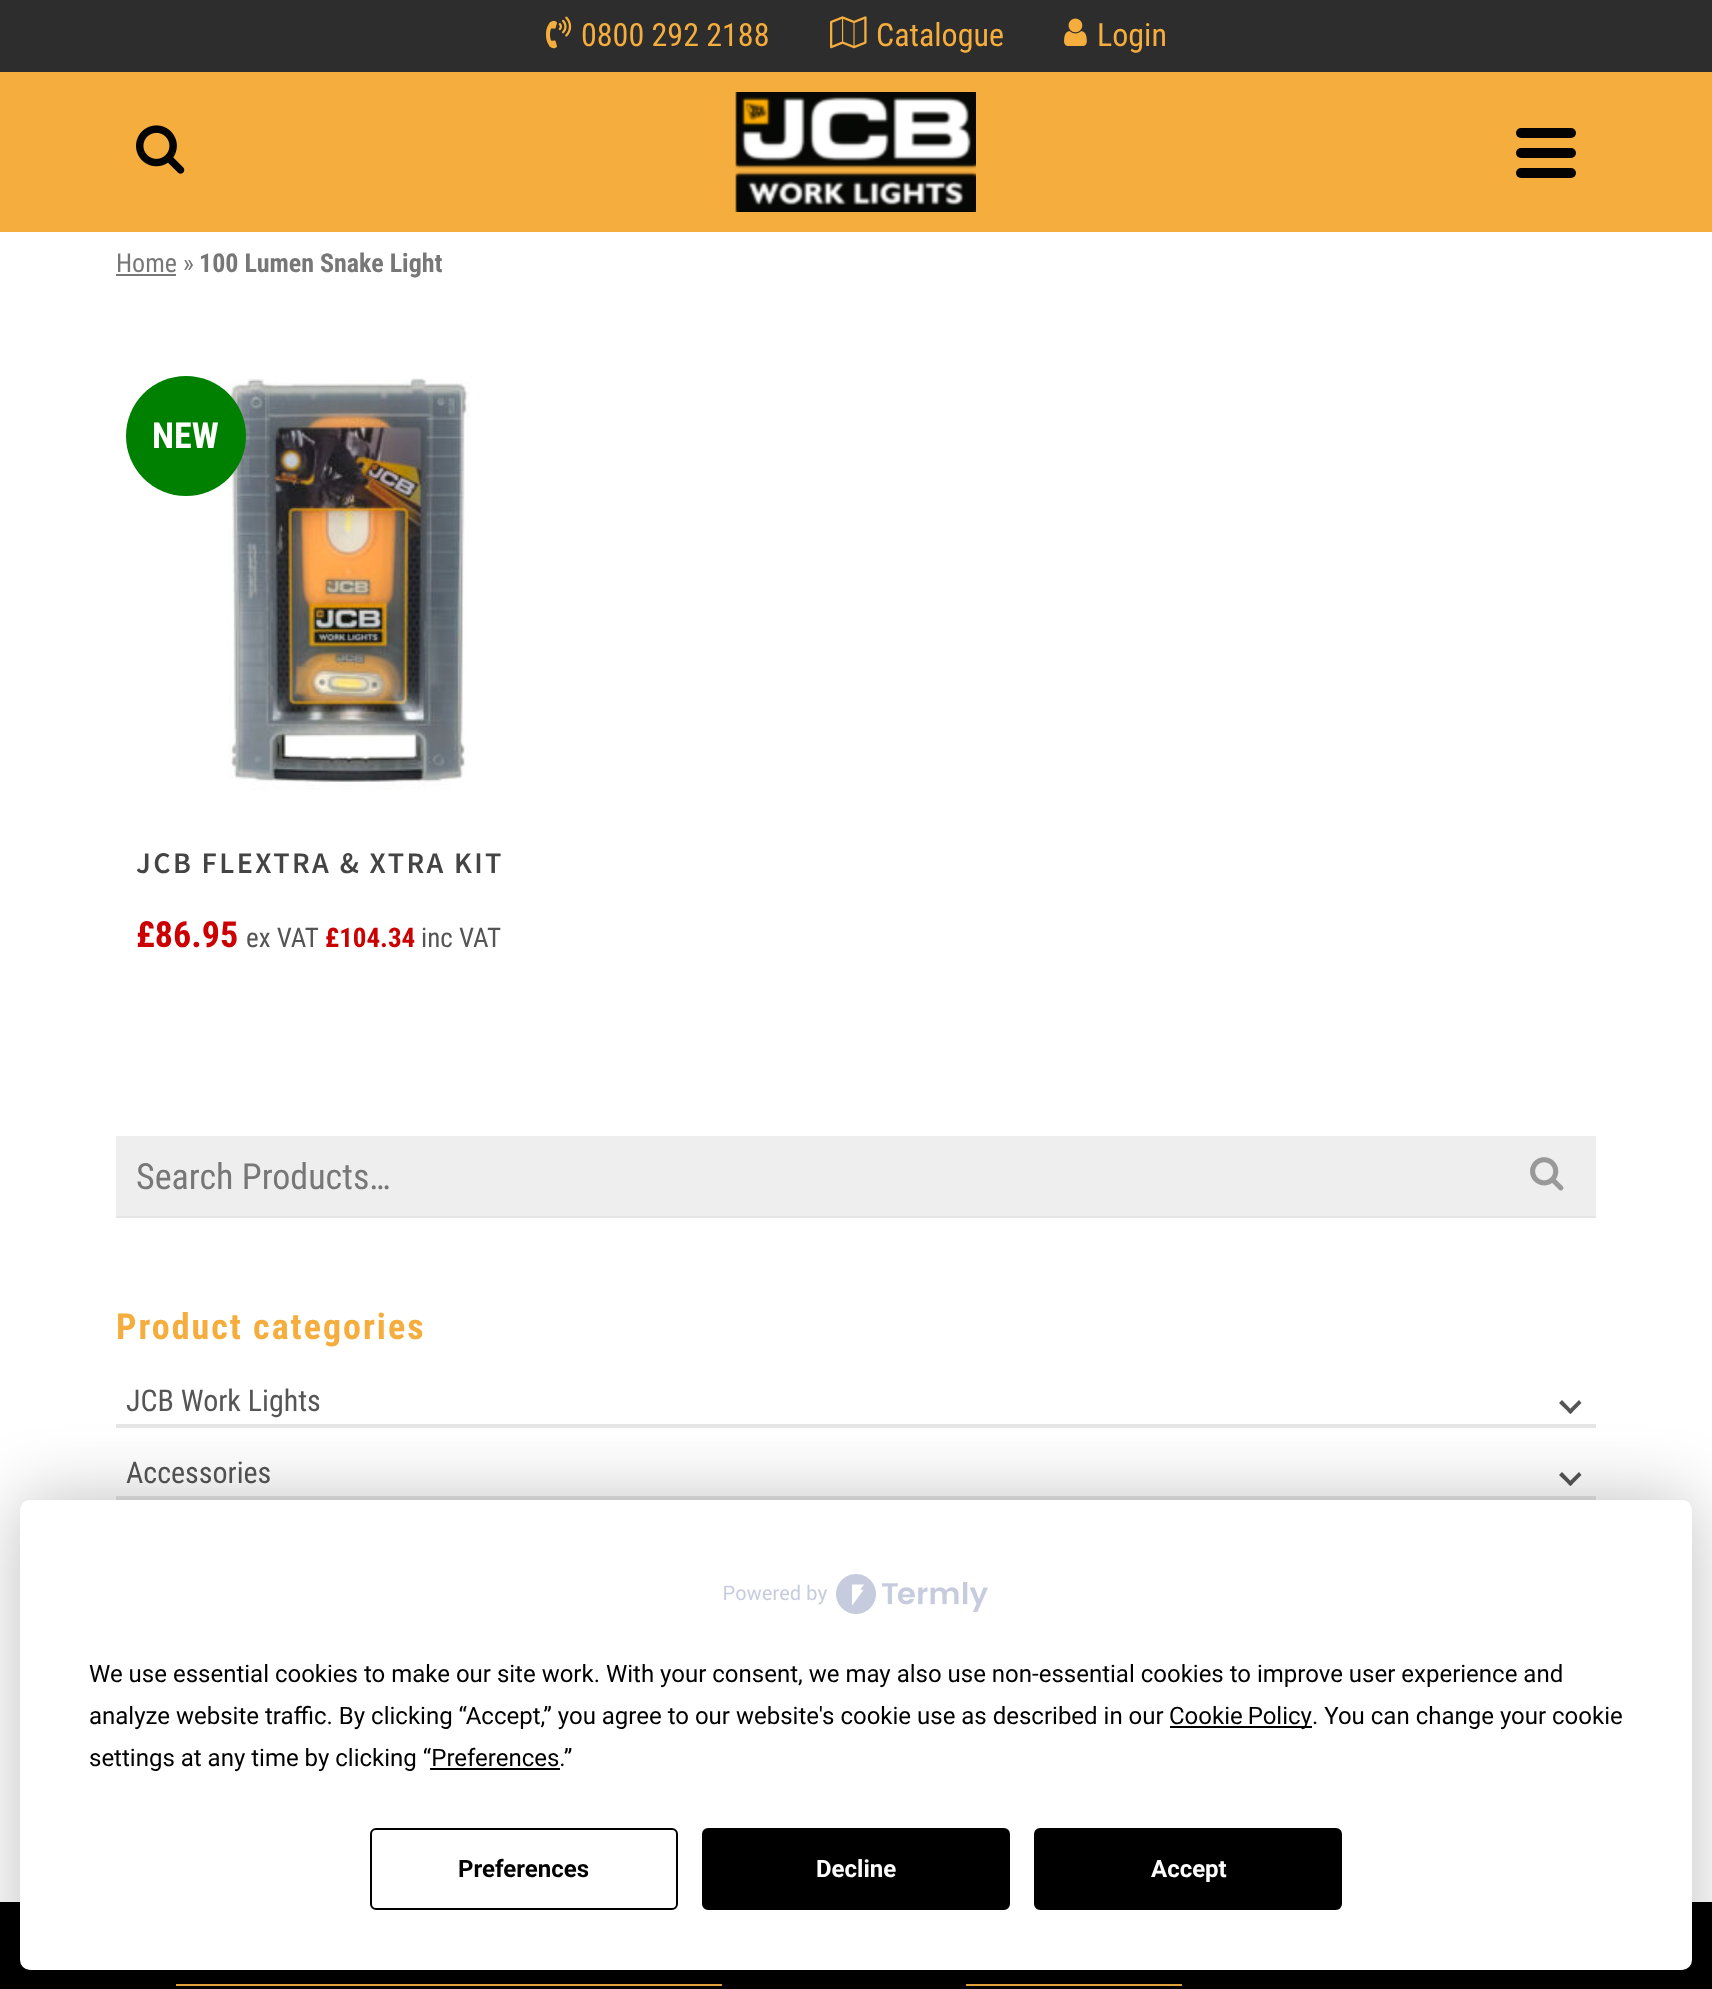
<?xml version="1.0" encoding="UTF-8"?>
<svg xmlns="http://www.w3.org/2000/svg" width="1712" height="1989">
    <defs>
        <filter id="blur1" x="-50%" y="-200%" width="200%" height="500%"><feGaussianBlur stdDeviation="35"/></filter>
    </defs>
    <rect width="100%" height="100%" fill="#FFFFFF"/>
    <rect x="0" y="72" width="1712" height="160" fill="#F5AE3E"/>
    <rect x="0" y="0" width="1712" height="72" fill="#2D2D2D"/>
    <image x="546" y="16" width="26" height="33" href="img_01.png"/>
    <text x="581" y="46" font-family="Roboto Condensed" font-size="32" fill="#F5AE3E">0800 292 2188</text>
    <image x="830" y="16" width="37" height="33" href="img_02.png"/>
    <text x="876" y="46" font-family="Roboto Condensed" font-size="32" fill="#F5AE3E">Catalogue</text>
    <image x="1064" y="18" width="23" height="28" href="img_03.png"/>
    <text x="1097" y="46" font-family="Roboto Condensed" font-size="32" fill="#F5AE3E">Login</text>
    <image x="136" y="125" width="49" height="49" href="img_04.png"/>
    <image x="735" y="92" width="241" height="120" href="img_05.png"/>
    <rect x="1516" y="128" width="60" height="10" rx="5" fill="#030303"/>
    <rect x="1516" y="148" width="60" height="10" rx="5" fill="#030303"/>
    <rect x="1516" y="168" width="60" height="10" rx="5" fill="#030303"/>
    <text x="116" y="272" font-family="Roboto Condensed" font-size="26" fill="#777777">Home »</text>
    <rect x="116" y="274" width="60" height="2" fill="#777777"/>
    <text x="199" y="272" font-family="Roboto Condensed" font-size="26" font-weight="700" fill="#777777">100 Lumen Snake Light</text>
    <image x="228" y="378" width="242" height="412" href="img_06.png"/>
    <circle cx="186" cy="436" r="60" fill="#008000"/>
    <text x="152" y="448" font-family="Roboto Condensed" font-size="36" font-weight="700" fill="#FFFFFF">NEW</text>
    <text x="136" y="873" font-family="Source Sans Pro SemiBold" font-size="30" font-weight="600" letter-spacing="2.4" fill="#444444">JCB FLEXTRA &amp; XTRA KIT</text>
    <text x="136" y="947" font-family="Roboto Condensed" font-size="36" font-weight="700" fill="#CC0000">£86.95</text>
    <text x="246" y="947" font-family="Roboto Condensed" font-size="27" fill="#555555">ex VAT</text>
    <text x="325" y="947" font-family="Roboto Condensed" font-size="27" font-weight="700" fill="#CC0000">£104.34</text>
    <text x="421" y="947" font-family="Roboto Condensed" font-size="27" fill="#555555">inc VAT</text>
    <rect x="116" y="1216" width="1480" height="2" fill="#E6E6E6"/>
    <rect x="116" y="1136" width="1480" height="80" fill="#EEEEEE"/>
    <text x="136" y="1189" font-family="Roboto Condensed" font-size="36" fill="#777777">Search Products…</text>
    <image x="1530" y="1157" width="34" height="34" href="img_07.png"/>
    <text x="116" y="1339" font-family="Roboto Condensed" font-size="36" font-weight="700" letter-spacing="2" fill="#F5AE3E">Product categories</text>
    <rect x="116" y="1424" width="1480" height="4" fill="#E6E6E6"/>
    <text x="126" y="1411" font-family="Roboto Condensed" font-size="30" fill="#555555">JCB Work Lights</text>
    <path d="M 1581.5 1403 L 1570.5 1414 L 1567.5 1411.5 L 1579 1400 Z" fill="#555555"/>
    <path d="M 1573 1411.5 L 1570.5 1414 L 1559 1403 L 1562 1400 Z" fill="#555555"/>
    <rect x="116" y="1496" width="1480" height="4" fill="#E6E6E6"/>
    <text x="126" y="1483" font-family="Roboto Condensed" font-size="30" fill="#555555">Accessories</text>
    <path d="M 1581.5 1475 L 1570.5 1486 L 1567.5 1483.5 L 1579 1472 Z" fill="#555555"/>
    <path d="M 1573 1483.5 L 1570.5 1486 L 1559 1475 L 1562 1472 Z" fill="#555555"/>
    <rect x="0" y="1902" width="1712" height="87" fill="#000000"/>
    <rect x="176" y="1984" width="546" height="2" fill="#F5AE3E"/>
    <rect x="966" y="1984" width="216" height="2" fill="#F5AE3E"/>
    <rect x="20" y="1500" width="1672" height="470" rx="10" fill="#000000" fill-opacity="0.25" filter="url(#blur1)"/>
    <rect x="20" y="1500" width="1672" height="470" rx="10" fill="#FFFFFF"/>
    <image x="724" y="1574" width="264" height="40" href="img_08.png"/>
    <text font-family="Roboto" font-size="24" fill="#000000">
        <tspan x="89" y="1682">We use essential cookies to make our site work. With your consent, we may also use non-essential cookies to improve user experience and</tspan>
        <tspan x="89" y="1724">analyze website traffic. By clicking “Accept,” you agree to our website's cookie use as described in our</tspan>
    </text>
    <rect x="1170" y="1726" width="142" height="2" fill="#000000"/>
    <text x="1169" y="1724" word-spacing="-1" font-family="Roboto" font-size="24" fill="#000000">Cookie Policy</text>
    <text x="1312" y="1724" font-family="Roboto" font-size="24" fill="#000000">. You can change your cookie</text>
    <text x="89" y="1766" font-family="Roboto" font-size="24" fill="#000000">settings at any time by clicking “Preferences.”</text>
    <rect x="430" y="1768" width="130" height="2" fill="#000000"/>
    <rect x="371" y="1829" width="306" height="80" rx="5" fill="none" stroke="#000000" stroke-width="2"/>
    <text x="458" y="1877" font-family="Roboto" font-size="24" font-weight="700" fill="#000000">Preferences</text>
    <rect x="703" y="1829" width="306" height="80" rx="5" fill="#000000" stroke="#000000" stroke-width="2"/>
    <text x="816" y="1877" font-family="Roboto" font-size="24" font-weight="700" fill="#FFFFFF">Decline</text>
    <rect x="1035" y="1829" width="306" height="80" rx="5" fill="#000000" stroke="#000000" stroke-width="2"/>
    <text x="1151" y="1877" font-family="Roboto" font-size="24" font-weight="700" fill="#FFFFFF">Accept</text>
</svg>
